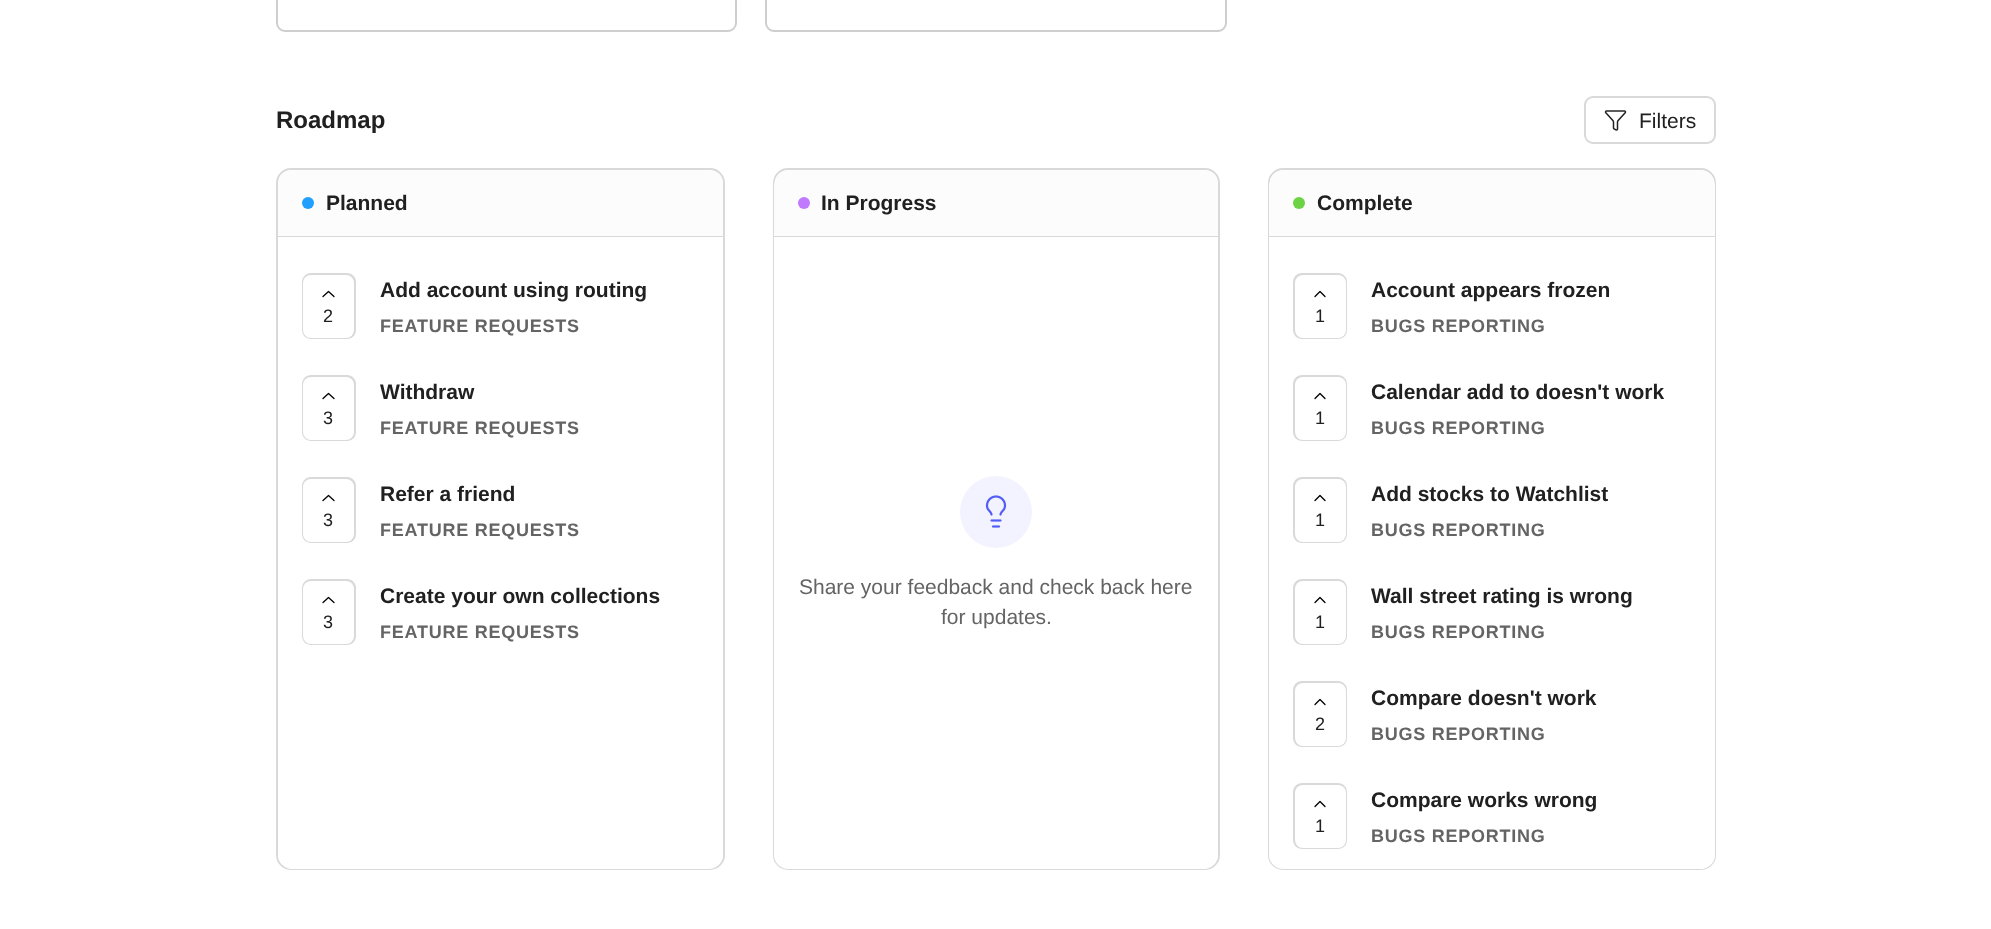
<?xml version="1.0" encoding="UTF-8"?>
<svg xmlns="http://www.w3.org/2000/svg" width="1991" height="929">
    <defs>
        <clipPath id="clip1"><rect x="278" y="170" width="445" height="699" rx="14"/></clipPath>
        <clipPath id="clip2"><rect x="774" y="170" width="444" height="699" rx="14"/></clipPath>
        <clipPath id="clip3"><rect x="1269" y="170" width="446" height="699" rx="14"/></clipPath>
    </defs>
    <rect width="100%" height="100%" fill="#FFFFFF"/>
    <rect x="277" y="-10" width="459" height="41" rx="8" fill="none" stroke="#CECECE" stroke-width="2"/>
    <rect x="766" y="-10" width="460" height="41" rx="8" fill="none" stroke="#CECECE" stroke-width="2"/>
    <text x="276" y="128" font-family="Liberation Sans" font-size="24" font-weight="700" fill="#202020">Roadmap</text>
    <rect x="1585" y="97" width="130" height="46" rx="8" fill="none" stroke="#D9D9D9" stroke-width="2"/>
    <image x="1604" y="110" width="23" height="21" href="img_01.png"/>
    <text x="1639" y="128" font-family="Liberation Sans" font-size="21" fill="#202020">Filters</text>
    <rect x="277" y="169" width="447" height="700" rx="14" fill="none" stroke="#D9D9D9" stroke-width="2"/>
    <g clip-path="url(#clip1)">
        <path d="M 293 170 H 708 C 716.5 170 723 176.5 723 185 V 237 H 278 V 185 C 278 176.5 284.5 170 293 170 Z" fill="#FCFCFC"/>
    </g>
    <rect x="278" y="236" width="445" height="1" fill="#D9D9D9"/>
    <circle cx="308" cy="203" r="6" fill="#1FA0FF"/>
    <text x="326" y="210" font-family="Liberation Sans" font-size="21" font-weight="700" fill="#202020">Planned</text>
    <path d="M 278 237 H 723 V 855 C 723 862.5 716.5 869 709 869 H 292 C 284.5 869 278 862.5 278 855 Z" fill="#FFFFFF"/>
    <path d="M 311 273 H 347 C 352 273 356 277 356 282 V 330 C 356 335 352 339 347 339 H 311 C 306 339 302 335 302 330 V 282 C 302 277 306 273 311 273 Z" fill="#D9D9D9"/>
    <rect x="303" y="275" width="51" height="63" rx="8" fill="#FFFFFF"/>
    <path d="M 334 296.5 L 328.5 291.5 L 323 296.5" fill="none" stroke="#000000" stroke-width="1.3" stroke-linecap="round" stroke-linejoin="round"/>
    <text x="323" y="322" font-family="Liberation Sans" font-size="18" fill="#202020">2</text>
    <text x="380" y="297" font-family="Liberation Sans" font-size="21" font-weight="700" fill="#202020">Add account using routing</text>
    <text x="380" y="332" font-family="Liberation Sans" font-size="18" font-weight="700" letter-spacing="0.75" fill="#646464">FEATURE REQUESTS</text>
    <path d="M 311 375 H 347 C 352 375 356 379 356 384 V 432 C 356 437 352 441 347 441 H 311 C 306 441 302 437 302 432 V 384 C 302 379 306 375 311 375 Z" fill="#D9D9D9"/>
    <rect x="303" y="377" width="51" height="63" rx="8" fill="#FFFFFF"/>
    <path d="M 334 398.5 L 328.5 393.5 L 323 398.5" fill="none" stroke="#000000" stroke-width="1.3" stroke-linecap="round" stroke-linejoin="round"/>
    <text x="323" y="424" font-family="Liberation Sans" font-size="18" fill="#202020">3</text>
    <text x="380" y="399" font-family="Liberation Sans" font-size="21" font-weight="700" fill="#202020">Withdraw</text>
    <text x="380" y="434" font-family="Liberation Sans" font-size="18" font-weight="700" letter-spacing="0.75" fill="#646464">FEATURE REQUESTS</text>
    <path d="M 311 477 H 347 C 352 477 356 481 356 486 V 534 C 356 539 352 543 347 543 H 311 C 306 543 302 539 302 534 V 486 C 302 481 306 477 311 477 Z" fill="#D9D9D9"/>
    <rect x="303" y="479" width="51" height="63" rx="8" fill="#FFFFFF"/>
    <path d="M 334 500.5 L 328.5 495.5 L 323 500.5" fill="none" stroke="#000000" stroke-width="1.3" stroke-linecap="round" stroke-linejoin="round"/>
    <text x="323" y="526" font-family="Liberation Sans" font-size="18" fill="#202020">3</text>
    <text x="380" y="501" font-family="Liberation Sans" font-size="21" font-weight="700" fill="#202020">Refer a friend</text>
    <text x="380" y="536" font-family="Liberation Sans" font-size="18" font-weight="700" letter-spacing="0.75" fill="#646464">FEATURE REQUESTS</text>
    <path d="M 311 579 H 347 C 352 579 356 583 356 588 V 636 C 356 641 352 645 347 645 H 311 C 306 645 302 641 302 636 V 588 C 302 583 306 579 311 579 Z" fill="#D9D9D9"/>
    <rect x="303" y="581" width="51" height="63" rx="8" fill="#FFFFFF"/>
    <path d="M 334 602.5 L 328.5 597.5 L 323 602.5" fill="none" stroke="#000000" stroke-width="1.3" stroke-linecap="round" stroke-linejoin="round"/>
    <text x="323" y="628" font-family="Liberation Sans" font-size="18" fill="#202020">3</text>
    <text x="380" y="603" font-family="Liberation Sans" font-size="21" font-weight="700" fill="#202020">Create your own collections</text>
    <text x="380" y="638" font-family="Liberation Sans" font-size="18" font-weight="700" letter-spacing="0.75" fill="#646464">FEATURE REQUESTS</text>
    <rect x="774" y="169" width="445" height="700" rx="14" fill="none" stroke="#D9D9D9" stroke-width="2"/>
    <g clip-path="url(#clip2)">
        <path d="M 789 170 H 1203 C 1211.5 170 1218 176.5 1218 185 V 237 H 774 V 185 C 774 176.5 780.5 170 789 170 Z" fill="#FCFCFC"/>
    </g>
    <rect x="774" y="236" width="444" height="1" fill="#D9D9D9"/>
    <circle cx="804" cy="203" r="6" fill="#C17AFF"/>
    <text x="821" y="210" font-family="Liberation Sans" font-size="21" font-weight="700" fill="#202020">In Progress</text>
    <path d="M 774 237 H 1218 V 855 C 1218 862.5 1211.5 869 1204 869 H 788 C 780.5 869 774 862.5 774 855 Z" fill="#FFFFFF"/>
    <circle cx="996" cy="512" r="36" fill="#F2F3FF"/>
    <image x="985" y="495" width="22" height="33" href="img_02.png"/>
    <text x="799" y="594" font-family="Liberation Sans" font-size="21" fill="#646464">Share your feedback and check back here</text>
    <text x="941" y="624" font-family="Liberation Sans" font-size="21" fill="#646464">for updates.</text>
    <rect x="1269" y="169" width="446" height="700" rx="14" fill="none" stroke="#D9D9D9" stroke-width="2"/>
    <g clip-path="url(#clip3)">
        <path d="M 1284 170 H 1700 C 1708.5 170 1715 176.5 1715 185 V 237 H 1269 V 185 C 1269 176.5 1275.5 170 1284 170 Z" fill="#FCFCFC"/>
    </g>
    <rect x="1269" y="236" width="446" height="1" fill="#D9D9D9"/>
    <circle cx="1299" cy="203" r="6" fill="#6CD345"/>
    <text x="1317" y="210" font-family="Liberation Sans" font-size="21" font-weight="700" fill="#202020">Complete</text>
    <path d="M 1269 237 H 1715 V 855 C 1715 862.5 1708.5 869 1701 869 H 1283 C 1275.5 869 1269 862.5 1269 855 Z" fill="#FFFFFF"/>
    <path d="M 1302 273 H 1338 C 1343 273 1347 277 1347 282 V 330 C 1347 335 1343 339 1338 339 H 1302 C 1297 339 1293 335 1293 330 V 282 C 1293 277 1297 273 1302 273 Z" fill="#D9D9D9"/>
    <rect x="1295" y="275" width="51" height="63" rx="8" fill="#FFFFFF"/>
    <path d="M 1325 296.5 L 1320 291.5 L 1315 296.5" fill="none" stroke="#000000" stroke-width="1.3" stroke-linecap="round" stroke-linejoin="round"/>
    <text x="1315" y="322" font-family="Liberation Sans" font-size="18" fill="#202020">1</text>
    <text x="1371" y="297" font-family="Liberation Sans" font-size="21" font-weight="700" fill="#202020">Account appears frozen</text>
    <text x="1371" y="332" font-family="Liberation Sans" font-size="18" font-weight="700" letter-spacing="0.75" fill="#646464">BUGS REPORTING</text>
    <path d="M 1302 375 H 1338 C 1343 375 1347 379 1347 384 V 432 C 1347 437 1343 441 1338 441 H 1302 C 1297 441 1293 437 1293 432 V 384 C 1293 379 1297 375 1302 375 Z" fill="#D9D9D9"/>
    <rect x="1295" y="377" width="51" height="63" rx="8" fill="#FFFFFF"/>
    <path d="M 1325 398.5 L 1320 393.5 L 1315 398.5" fill="none" stroke="#000000" stroke-width="1.3" stroke-linecap="round" stroke-linejoin="round"/>
    <text x="1315" y="424" font-family="Liberation Sans" font-size="18" fill="#202020">1</text>
    <text x="1371" y="399" font-family="Liberation Sans" font-size="21" font-weight="700" fill="#202020">Calendar add to doesn't work</text>
    <text x="1371" y="434" font-family="Liberation Sans" font-size="18" font-weight="700" letter-spacing="0.75" fill="#646464">BUGS REPORTING</text>
    <path d="M 1302 477 H 1338 C 1343 477 1347 481 1347 486 V 534 C 1347 539 1343 543 1338 543 H 1302 C 1297 543 1293 539 1293 534 V 486 C 1293 481 1297 477 1302 477 Z" fill="#D9D9D9"/>
    <rect x="1295" y="479" width="51" height="63" rx="8" fill="#FFFFFF"/>
    <path d="M 1325 500.5 L 1320 495.5 L 1315 500.5" fill="none" stroke="#000000" stroke-width="1.3" stroke-linecap="round" stroke-linejoin="round"/>
    <text x="1315" y="526" font-family="Liberation Sans" font-size="18" fill="#202020">1</text>
    <text x="1371" y="501" font-family="Liberation Sans" font-size="21" font-weight="700" fill="#202020">Add stocks to Watchlist</text>
    <text x="1371" y="536" font-family="Liberation Sans" font-size="18" font-weight="700" letter-spacing="0.75" fill="#646464">BUGS REPORTING</text>
    <path d="M 1302 579 H 1338 C 1343 579 1347 583 1347 588 V 636 C 1347 641 1343 645 1338 645 H 1302 C 1297 645 1293 641 1293 636 V 588 C 1293 583 1297 579 1302 579 Z" fill="#D9D9D9"/>
    <rect x="1295" y="581" width="51" height="63" rx="8" fill="#FFFFFF"/>
    <path d="M 1325 602.5 L 1320 597.5 L 1315 602.5" fill="none" stroke="#000000" stroke-width="1.3" stroke-linecap="round" stroke-linejoin="round"/>
    <text x="1315" y="628" font-family="Liberation Sans" font-size="18" fill="#202020">1</text>
    <text x="1371" y="603" font-family="Liberation Sans" font-size="21" font-weight="700" fill="#202020">Wall street rating is wrong</text>
    <text x="1371" y="638" font-family="Liberation Sans" font-size="18" font-weight="700" letter-spacing="0.75" fill="#646464">BUGS REPORTING</text>
    <path d="M 1302 681 H 1338 C 1343 681 1347 685 1347 690 V 738 C 1347 743 1343 747 1338 747 H 1302 C 1297 747 1293 743 1293 738 V 690 C 1293 685 1297 681 1302 681 Z" fill="#D9D9D9"/>
    <rect x="1295" y="683" width="51" height="63" rx="8" fill="#FFFFFF"/>
    <path d="M 1325 704.5 L 1320 699.5 L 1315 704.5" fill="none" stroke="#000000" stroke-width="1.3" stroke-linecap="round" stroke-linejoin="round"/>
    <text x="1315" y="730" font-family="Liberation Sans" font-size="18" fill="#202020">2</text>
    <text x="1371" y="705" font-family="Liberation Sans" font-size="21" font-weight="700" fill="#202020">Compare doesn't work</text>
    <text x="1371" y="740" font-family="Liberation Sans" font-size="18" font-weight="700" letter-spacing="0.75" fill="#646464">BUGS REPORTING</text>
    <path d="M 1302 783 H 1338 C 1343 783 1347 787 1347 792 V 840 C 1347 845 1343 849 1338 849 H 1302 C 1297 849 1293 845 1293 840 V 792 C 1293 787 1297 783 1302 783 Z" fill="#D9D9D9"/>
    <rect x="1295" y="785" width="51" height="63" rx="8" fill="#FFFFFF"/>
    <path d="M 1325 806.5 L 1320 801.5 L 1315 806.5" fill="none" stroke="#000000" stroke-width="1.3" stroke-linecap="round" stroke-linejoin="round"/>
    <text x="1315" y="832" font-family="Liberation Sans" font-size="18" fill="#202020">1</text>
    <text x="1371" y="807" font-family="Liberation Sans" font-size="21" font-weight="700" fill="#202020">Compare works wrong</text>
    <text x="1371" y="842" font-family="Liberation Sans" font-size="18" font-weight="700" letter-spacing="0.75" fill="#646464">BUGS REPORTING</text>
</svg>
